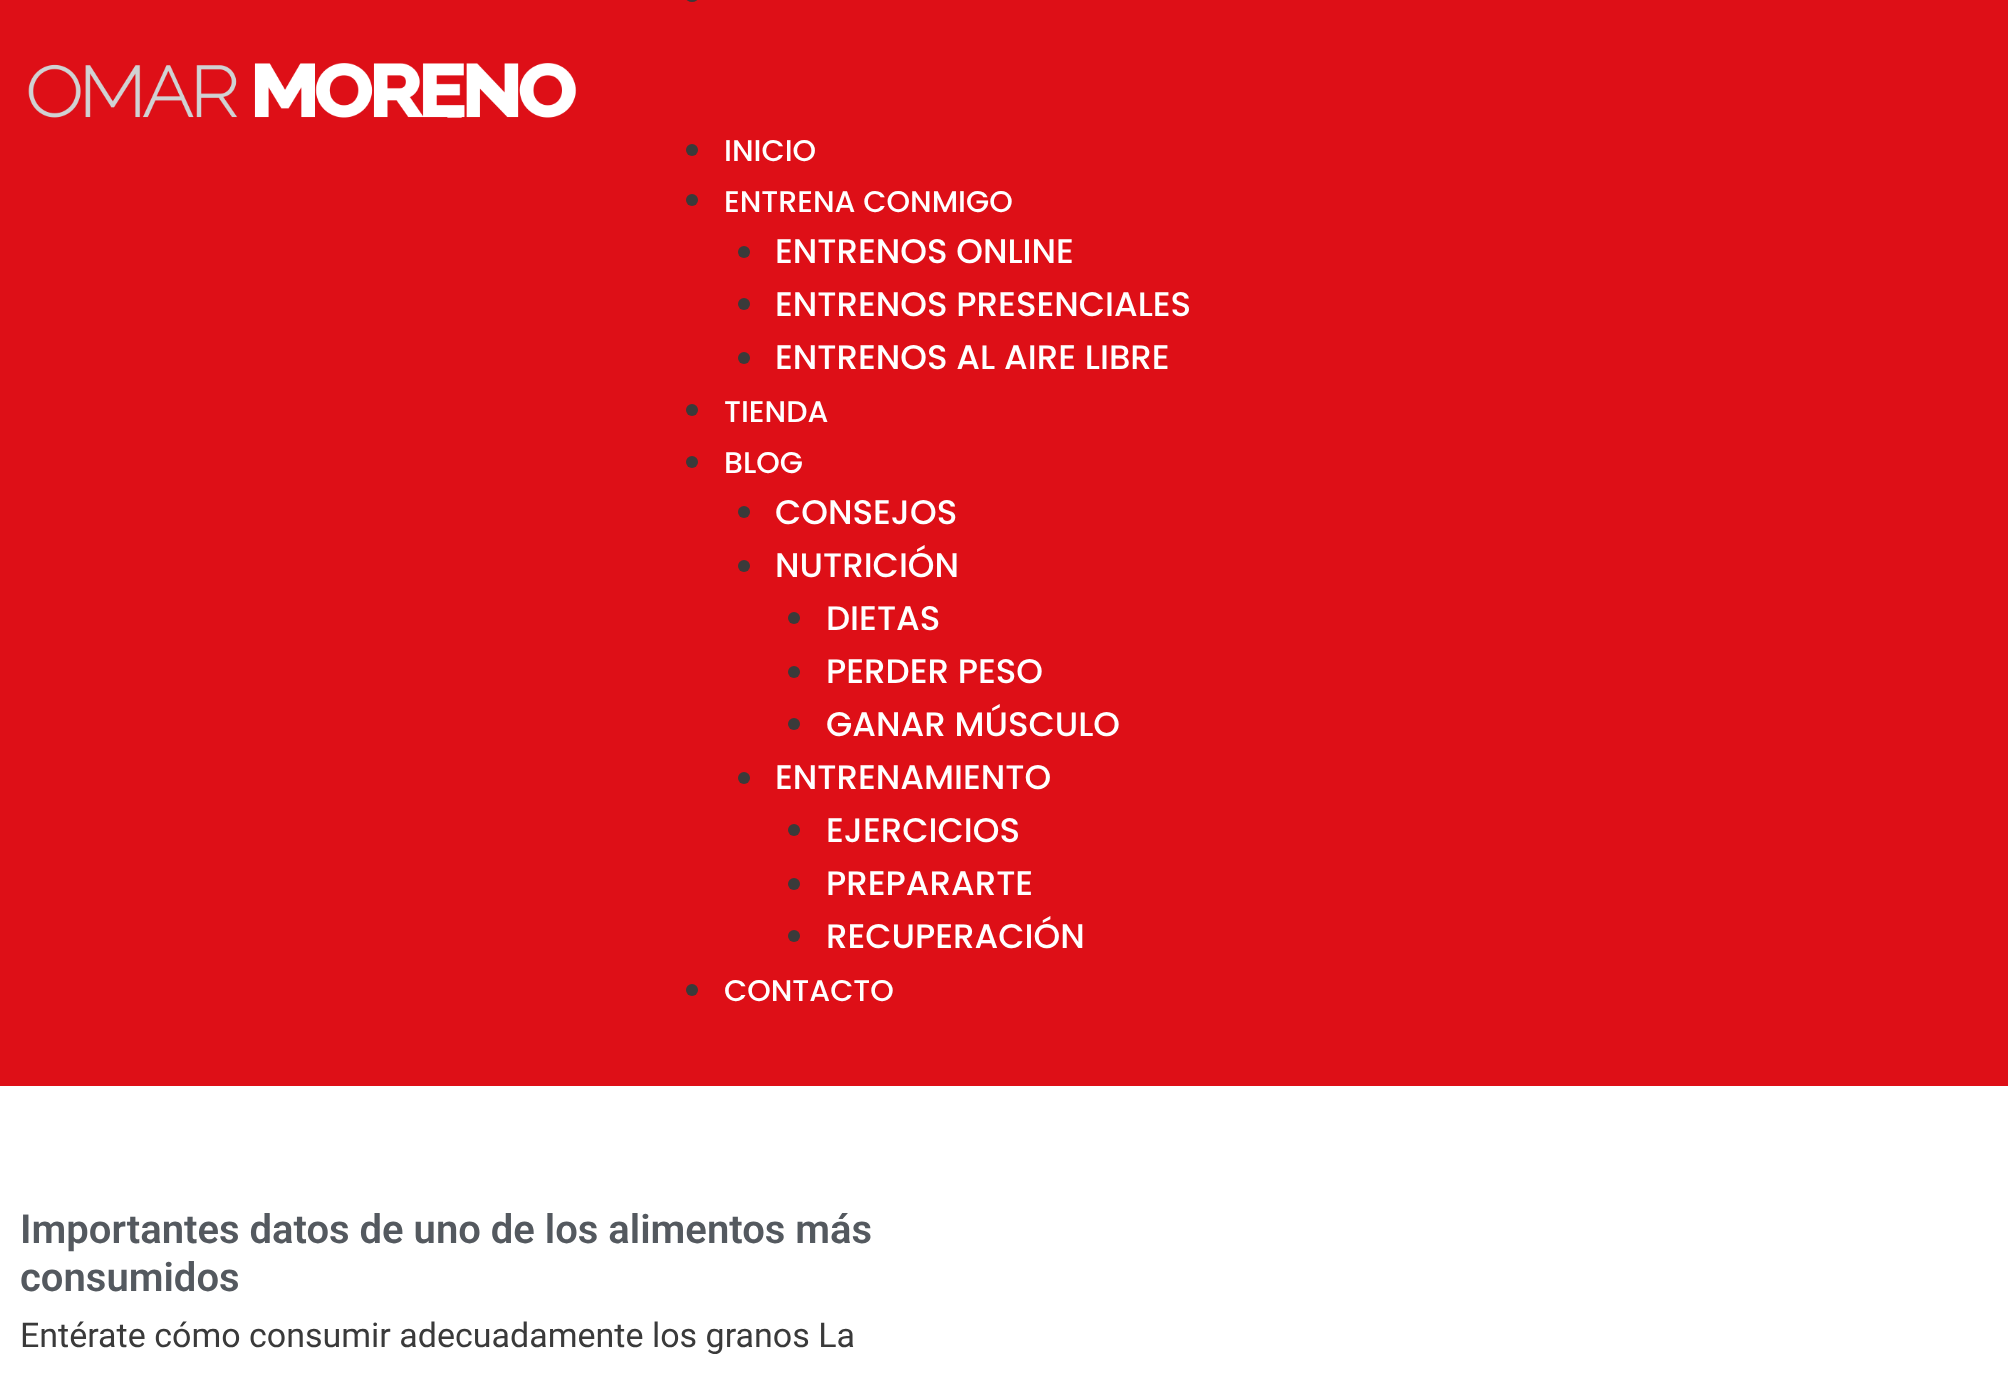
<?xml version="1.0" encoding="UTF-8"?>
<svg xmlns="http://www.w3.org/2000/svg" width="2008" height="1377">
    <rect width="100%" height="100%" fill="#FFFFFF"/>
    <rect x="0" y="0" width="2008" height="1086" fill="#DE0F17"/>
    <image x="28" y="63" width="549" height="55" href="img_01.png"/>
    <rect x="686" y="-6" width="12" height="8" rx="6" fill="#3A3A3A"/>
    <circle cx="692" cy="150" r="6" fill="#3A3A3A"/>
    <text x="724" y="161" font-family="Poppins" font-size="30" font-weight="500" fill="#FFFFFF">INICIO</text>
    <circle cx="692" cy="200" r="6" fill="#3A3A3A"/>
    <text x="724" y="212" font-family="Poppins" font-size="30" font-weight="500" fill="#FFFFFF">ENTRENA CONMIGO</text>
    <circle cx="744" cy="252" r="6" fill="#3A3A3A"/>
    <text x="775" y="263" font-family="Poppins" font-size="34" font-weight="500" fill="#FFFFFF">ENTRENOS ONLINE</text>
    <circle cx="744" cy="304" r="6" fill="#3A3A3A"/>
    <text x="775" y="316" font-family="Poppins" font-size="34" font-weight="500" fill="#FFFFFF">ENTRENOS PRESENCIALES</text>
    <circle cx="744" cy="358" r="6" fill="#3A3A3A"/>
    <text x="775" y="369" font-family="Poppins" font-size="34" font-weight="500" fill="#FFFFFF">ENTRENOS AL AIRE LIBRE</text>
    <circle cx="692" cy="410" r="6" fill="#3A3A3A"/>
    <text x="724" y="422" font-family="Poppins" font-size="30" font-weight="500" fill="#FFFFFF">TIENDA</text>
    <circle cx="692" cy="462" r="6" fill="#3A3A3A"/>
    <text x="724" y="473" font-family="Poppins" font-size="30" font-weight="500" fill="#FFFFFF">BLOG</text>
    <circle cx="744" cy="512" r="6" fill="#3A3A3A"/>
    <text x="775" y="524" font-family="Poppins" font-size="34" font-weight="500" fill="#FFFFFF">CONSEJOS</text>
    <circle cx="744" cy="566" r="6" fill="#3A3A3A"/>
    <text x="775" y="577" font-family="Poppins" font-size="34" font-weight="500" fill="#FFFFFF">NUTRICIÓN</text>
    <circle cx="794" cy="618" r="6" fill="#3A3A3A"/>
    <text x="826" y="630" font-family="Poppins" font-size="34" font-weight="500" fill="#FFFFFF">DIETAS</text>
    <circle cx="794" cy="672" r="6" fill="#3A3A3A"/>
    <text x="826" y="683" font-family="Poppins" font-size="34" font-weight="500" fill="#FFFFFF">PERDER PESO</text>
    <circle cx="794" cy="724" r="6" fill="#3A3A3A"/>
    <text x="826" y="736" font-family="Poppins" font-size="34" font-weight="500" fill="#FFFFFF">GANAR MÚSCULO</text>
    <circle cx="744" cy="778" r="6" fill="#3A3A3A"/>
    <text x="775" y="789" font-family="Poppins" font-size="34" font-weight="500" fill="#FFFFFF">ENTRENAMIENTO</text>
    <circle cx="794" cy="830" r="6" fill="#3A3A3A"/>
    <text x="826" y="842" font-family="Poppins" font-size="34" font-weight="500" fill="#FFFFFF">EJERCICIOS</text>
    <circle cx="794" cy="884" r="6" fill="#3A3A3A"/>
    <text x="826" y="895" font-family="Poppins" font-size="34" font-weight="500" fill="#FFFFFF">PREPARARTE</text>
    <circle cx="794" cy="936" r="6" fill="#3A3A3A"/>
    <text x="826" y="948" font-family="Poppins" font-size="34" font-weight="500" fill="#FFFFFF">RECUPERACIÓN</text>
    <circle cx="692" cy="990" r="6" fill="#3A3A3A"/>
    <text x="724" y="1001" font-family="Poppins" font-size="30" font-weight="500" fill="#FFFFFF">CONTACTO</text>
    <text font-family="Roboto" font-size="40" font-weight="600" fill="#54595F">
        <tspan x="20" y="1243">Importantes datos de uno de los alimentos más</tspan>
        <tspan x="20" y="1291">consumidos</tspan>
    </text>
    <text x="20" y="1347" font-family="Roboto" font-size="34" fill="#3A3A3A">Entérate cómo consumir adecuadamente los granos La</text>
</svg>
